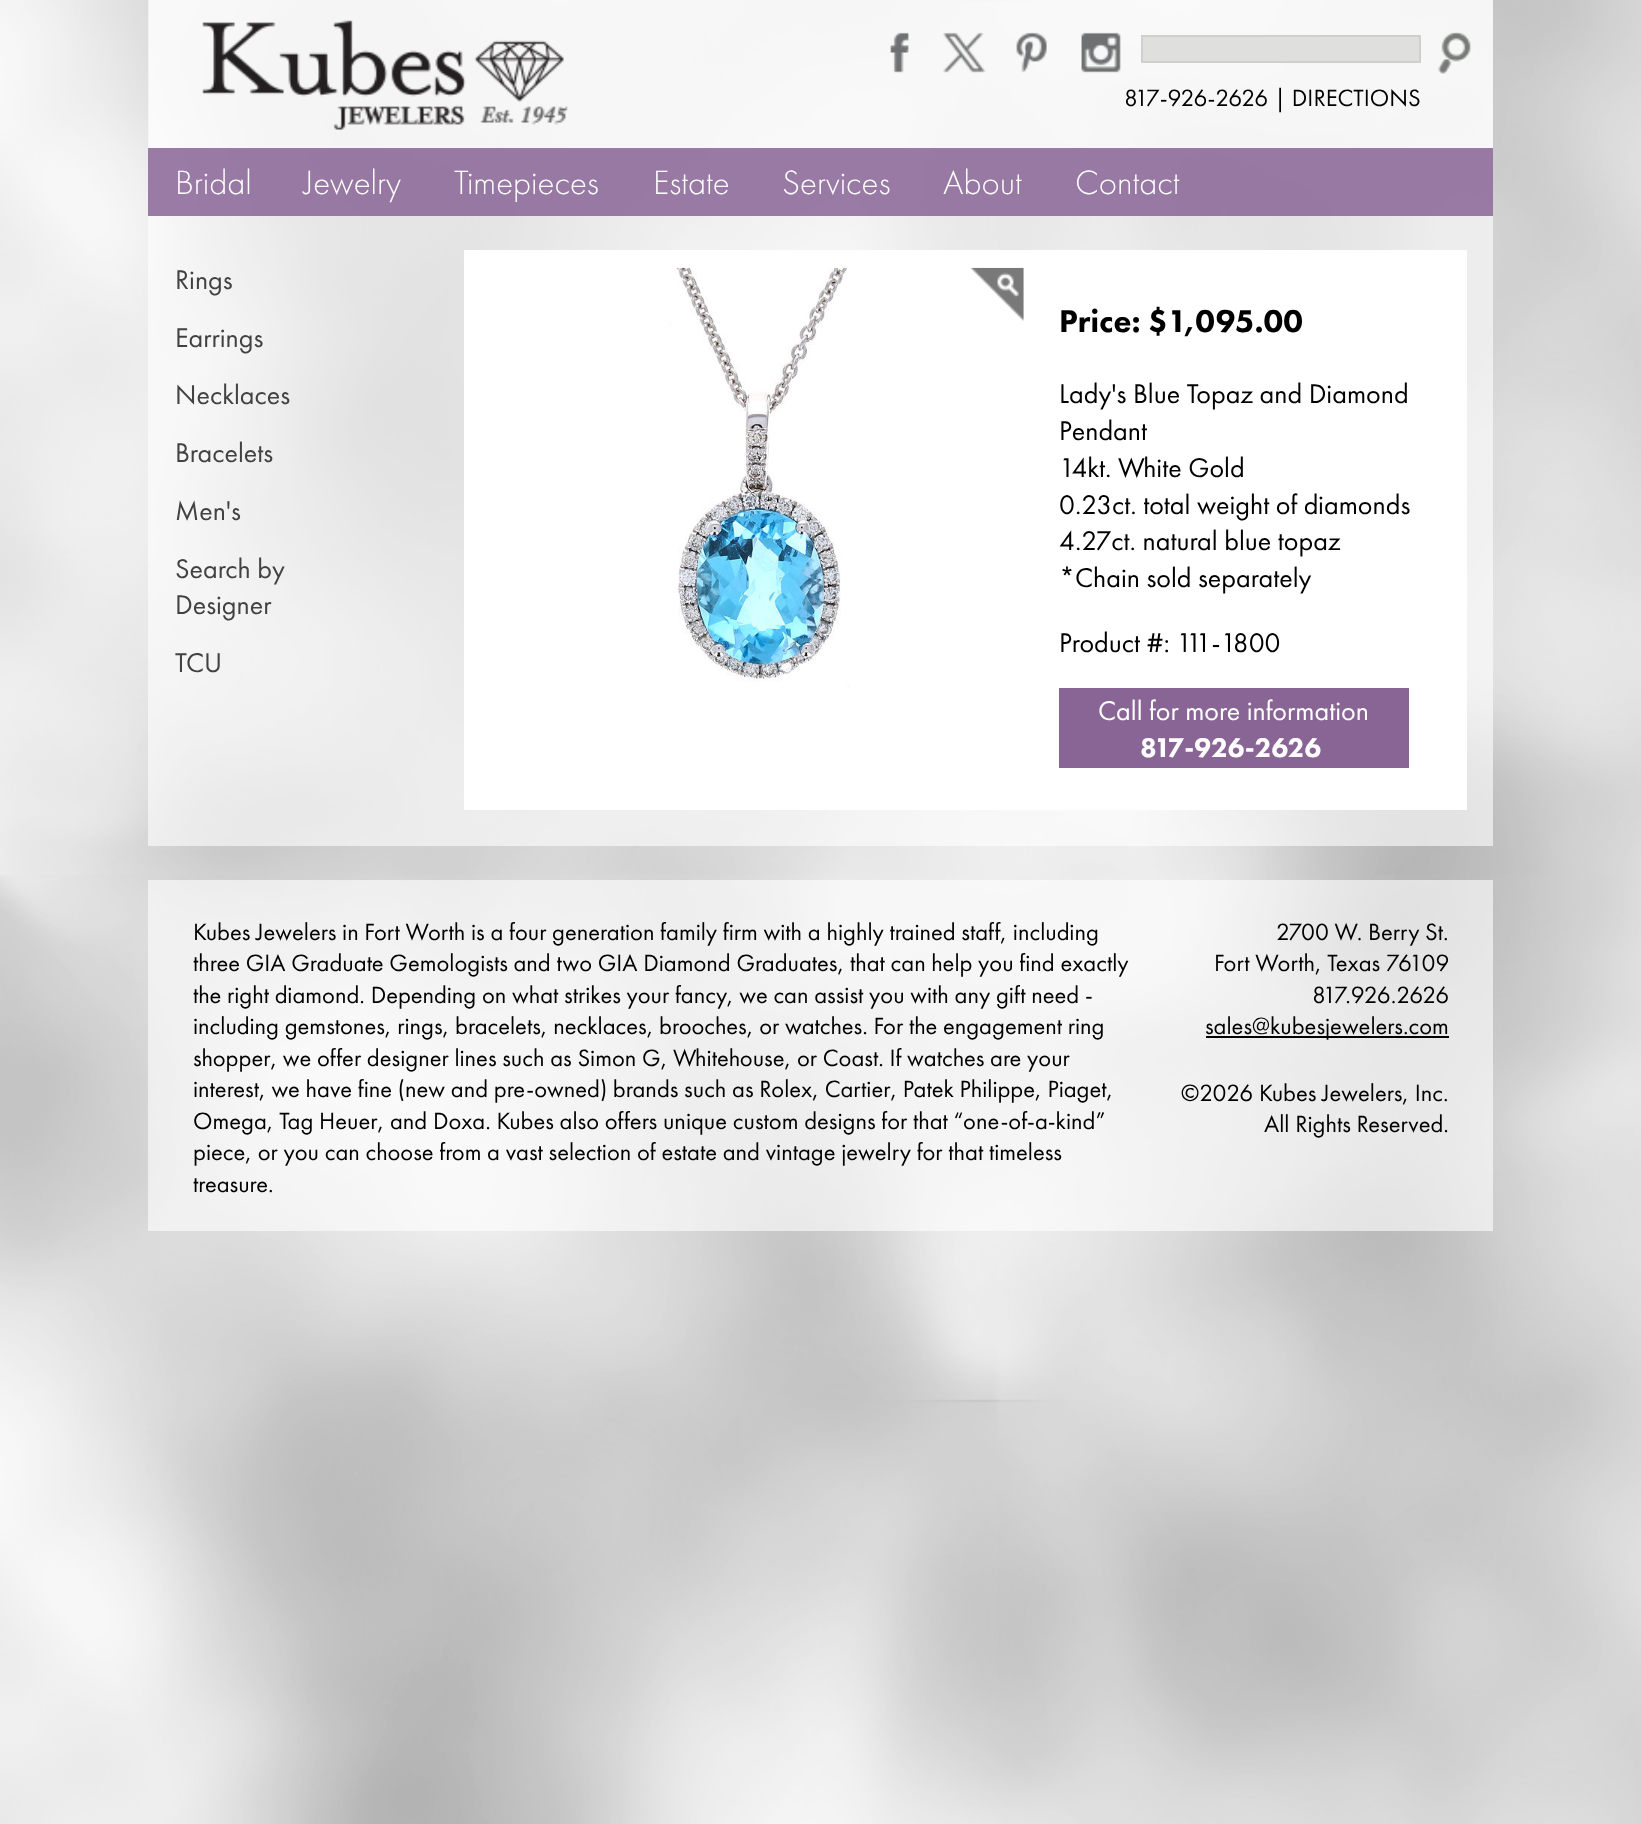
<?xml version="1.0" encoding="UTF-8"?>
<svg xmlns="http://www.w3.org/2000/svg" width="1641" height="1824">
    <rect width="100%" height="100%" fill="#FFFFFF"/>
    <image x="0" y="0" width="1641" height="1824" href="img_01.png"/>
    <rect x="148" y="0" width="1345" height="846" fill="#FFFFFF" fill-opacity="0.6"/>
    <rect x="149" y="0" width="1344" height="149" fill="#FFFFFF" fill-opacity="0.6"/>
    <image x="202" y="20" width="366" height="110" href="img_02.png"/>
    <image x="890" y="32" width="19" height="41" href="img_03.png"/>
    <image x="943" y="32" width="43" height="41" href="img_04.png"/>
    <image x="1016" y="32" width="31" height="41" href="img_05.png"/>
    <image x="1081" y="32" width="40" height="41" href="img_06.png"/>
    <rect x="1142" y="36" width="278" height="26" fill="#DFE0DE" stroke="#CFCFCF" stroke-width="2"/>
    <image x="1438" y="32" width="33" height="43" href="img_07.png"/>
    <text x="1124" y="106" font-family="Futura PT" font-size="24.5" fill="#000000">817-926-2626 | DIRECTIONS</text>
    <rect x="148" y="148" width="1345" height="68" fill="#896596" fill-opacity="0.85"/>
    <text x="175" y="194" font-family="Futura PT" font-size="35" font-weight="300" fill="#FFFFFF">Bridal</text>
    <text x="304" y="194" font-family="Futura PT" font-size="35" font-weight="300" fill="#FFFFFF">Jewelry</text>
    <text x="454" y="194" font-family="Futura PT" font-size="35" font-weight="300" fill="#FFFFFF">Timepieces</text>
    <text x="653" y="194" font-family="Futura PT" font-size="35" font-weight="300" fill="#FFFFFF">Estate</text>
    <text x="782" y="194" font-family="Futura PT" font-size="35" font-weight="300" fill="#FFFFFF">Services</text>
    <text x="943" y="194" font-family="Futura PT" font-size="35" font-weight="300" fill="#FFFFFF">About</text>
    <text x="1075" y="194" font-family="Futura PT" font-size="35" font-weight="300" fill="#FFFFFF">Contact</text>
    <text x="175" y="289" font-family="Futura PT" font-size="28" fill="#424242">Rings</text>
    <text x="175" y="347" font-family="Futura PT" font-size="28" fill="#424242">Earrings</text>
    <text x="175" y="404" font-family="Futura PT" font-size="28" fill="#424242">Necklaces</text>
    <text x="175" y="462" font-family="Futura PT" font-size="28" fill="#424242">Bracelets</text>
    <text x="175" y="520" font-family="Futura PT" font-size="28" fill="#424242">Men's</text>
    <text font-family="Futura PT" font-size="28" fill="#424242">
        <tspan x="175" y="578">Search by</tspan>
        <tspan x="175" y="614">Designer</tspan>
    </text>
    <text x="175" y="672" font-family="Futura PT" font-size="28" fill="#424242">TCU</text>
    <rect x="464" y="250" width="1003" height="560" fill="#FFFFFF"/>
    <image x="667" y="267" width="182" height="421" href="img_08.png"/>
    <image x="971" y="267" width="53" height="54" href="img_09.png"/>
    <text x="1059" y="332" font-family="Futura PT" font-size="32.75" font-weight="900" fill="#000000">Price: $1,095.00</text>
    <text font-family="Futura PT" font-size="28" fill="#000000">
        <tspan x="1059" y="403">Lady's Blue Topaz and Diamond</tspan>
        <tspan x="1059" y="440">Pendant</tspan>
        <tspan x="1059" y="477">14kt. White Gold</tspan>
        <tspan x="1059" y="514">0.23ct. total weight of diamonds</tspan>
        <tspan x="1059" y="550">4.27ct. natural blue topaz</tspan>
        <tspan x="1059" y="587">*Chain sold separately</tspan>
    </text>
    <text x="1059" y="652" font-family="Futura PT" font-size="28" fill="#000000">Product #: 111-1800</text>
    <rect x="1059" y="688" width="350" height="80" fill="#896596"/>
    <text x="1098" y="720" font-family="Futura PT" font-size="28" fill="#FFFFFF">Call for more information</text>
    <text x="1140" y="757" font-family="Futura PT" font-size="28" font-weight="900" fill="#FFFFFF">817-926-2626</text>
    <rect x="148" y="880" width="1345" height="351" fill="#FFFFFF" fill-opacity="0.6"/>
    <text font-family="Futura PT" font-size="24.5" fill="#000000">
        <tspan x="193" y="940">Kubes Jewelers in Fort Worth is a four generation family firm with a highly trained staff, including</tspan>
        <tspan x="193" y="971">three GIA Graduate Gemologists and two GIA Diamond Graduates, that can help you find exactly</tspan>
        <tspan x="193" y="1003">the right diamond. Depending on what strikes your fancy, we can assist you with any gift need -</tspan>
        <tspan x="193" y="1034">including gemstones, rings, bracelets, necklaces, brooches, or watches. For the engagement ring</tspan>
        <tspan x="193" y="1066">shopper, we offer designer lines such as Simon G, Whitehouse, or Coast. If watches are your</tspan>
        <tspan x="193" y="1097">interest, we have fine (new and pre-owned) brands such as Rolex, Cartier, Patek Philippe, Piaget,</tspan>
        <tspan x="193" y="1129">Omega, Tag Heuer, and Doxa. Kubes also offers unique custom designs for that “one-of-a-kind”</tspan>
        <tspan x="193" y="1160">piece, or you can choose from a vast selection of estate and vintage jewelry for that timeless</tspan>
        <tspan x="193" y="1192">treasure.</tspan>
    </text>
    <text x="1276" y="940" font-family="Futura PT" font-size="24.5" fill="#000000">2700 W. Berry St.</text>
    <text x="1214" y="971" font-family="Futura PT" font-size="24.5" fill="#000000">Fort Worth, Texas 76109</text>
    <text x="1312" y="1003" font-family="Futura PT" font-size="24.5" fill="#000000">817.926.2626</text>
    <rect x="1206" y="1036" width="243" height="2" fill="#000000"/>
    <text x="1205" y="1034" font-family="Futura PT" font-size="24.5" fill="#000000">sales@kubesjewelers.com</text>
    <text x="1181" y="1101" font-family="Futura PT" font-size="24.5" fill="#000000">©2026 Kubes Jewelers, Inc.</text>
    <text x="1264" y="1132" font-family="Futura PT" font-size="24.5" fill="#000000">All Rights Reserved.</text>
</svg>
